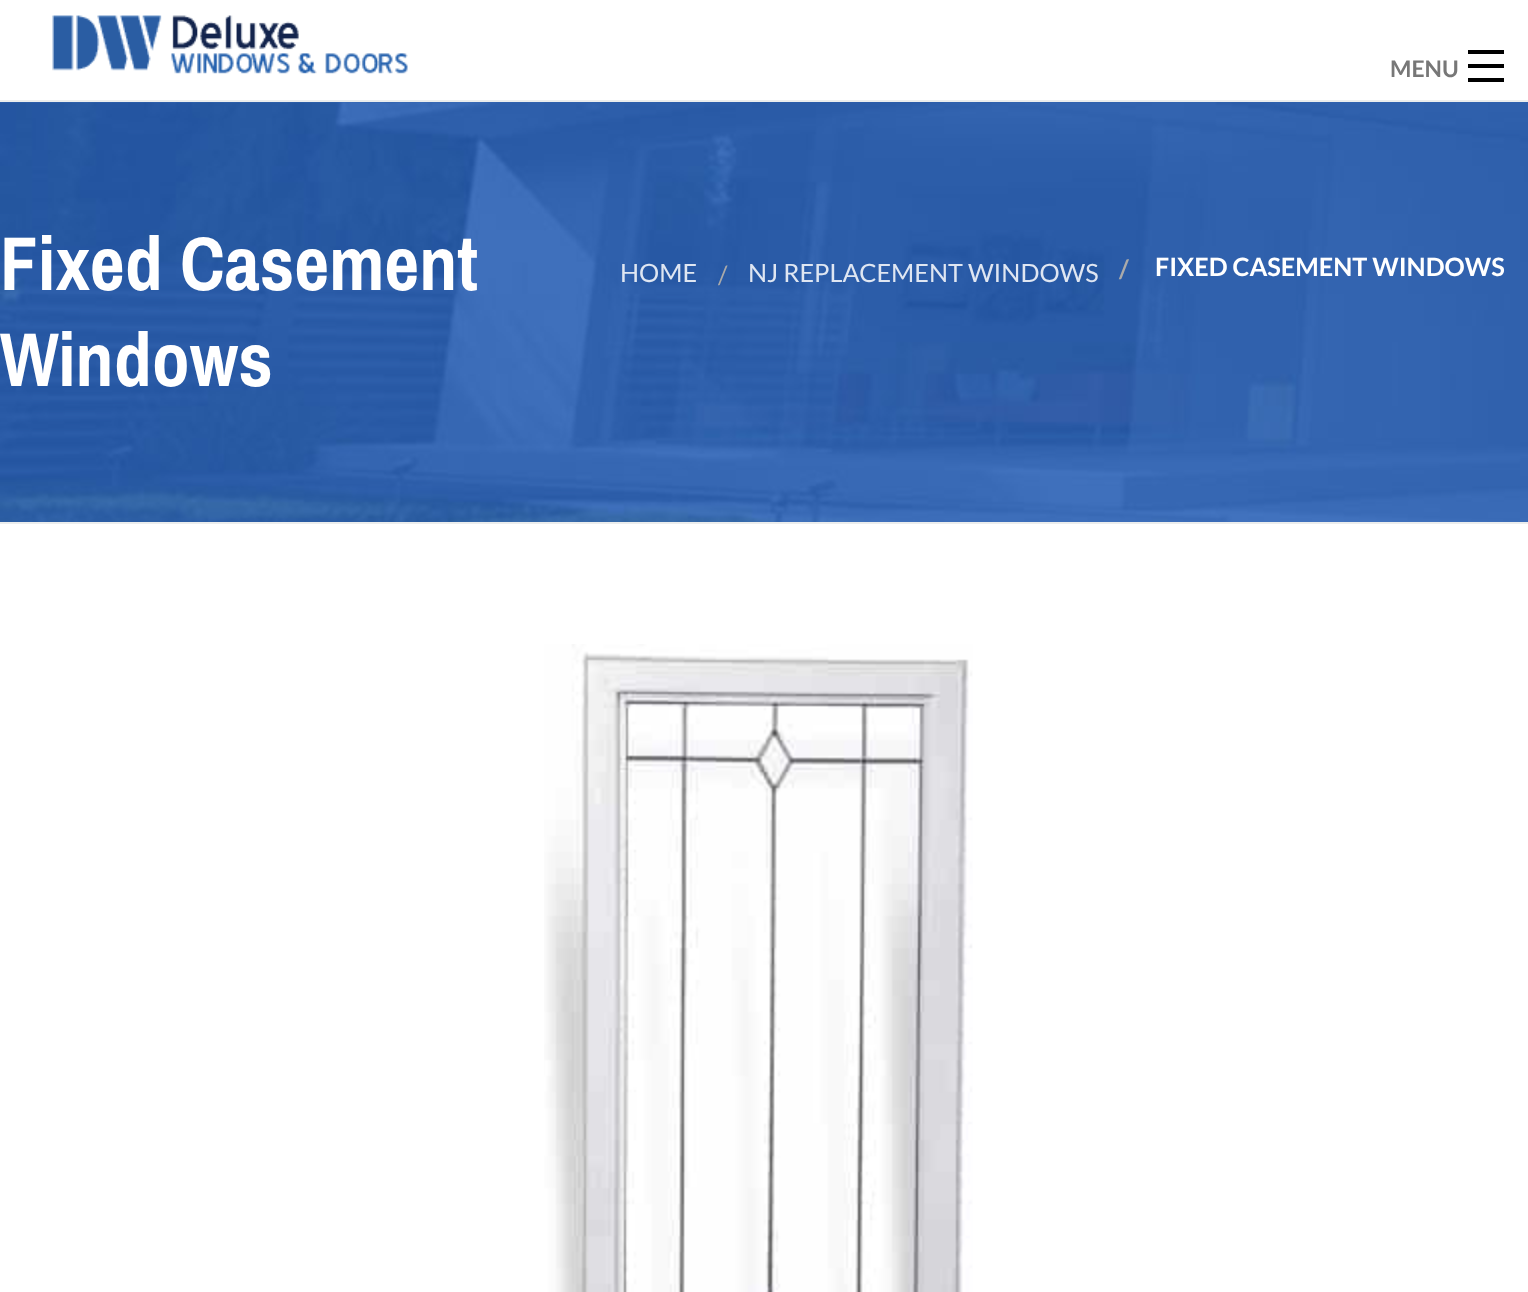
<?xml version="1.0" encoding="UTF-8"?>
<svg xmlns="http://www.w3.org/2000/svg" width="1528" height="1292">
    <rect width="100%" height="100%" fill="#FFFFFF"/>
    <image x="52" y="15" width="356" height="59" href="img_01.png"/>
    <text x="1390" y="77" font-family="Lato" font-size="23" font-weight="700" fill="#777777">MENU</text>
    <rect x="1468" y="78" width="36" height="4" fill="#000000"/>
    <rect x="1468" y="64" width="36" height="4" fill="#000000"/>
    <rect x="1468" y="50" width="36" height="4" fill="#000000"/>
    <image x="0" y="102" width="1528" height="420" href="img_02.png"/>
    <rect x="0" y="100" width="1528" height="2" fill="#EBEDED"/>
    <rect x="0" y="522" width="1528" height="2" fill="#EBEDED"/>
    <text font-family="Archivo Narrow" font-size="76" font-weight="700" fill="#FFFFFF">
        <tspan x="0" y="290">Fixed Casement</tspan>
        <tspan x="0" y="386">Windows</tspan>
    </text>
    <text x="620" y="282" font-family="Lato" font-size="25.25" fill="#DFE6F2">HOME</text>
    <text x="718" y="284" font-family="Lato" font-size="25.25" fill="#AAAAAA">/</text>
    <text x="748" y="282" font-family="Lato" font-size="25.25" fill="#DFE6F2">NJ REPLACEMENT WINDOWS</text>
    <text x="1119" y="278" font-family="Lato" font-size="25.25" font-weight="700" fill="#AAAAAA">/</text>
    <text x="1155" y="276" font-family="Lato" font-size="25.25" font-weight="700" fill="#FFFFFF">FIXED CASEMENT WINDOWS</text>
    <image x="544" y="644" width="429" height="648" href="img_03.png"/>
</svg>
